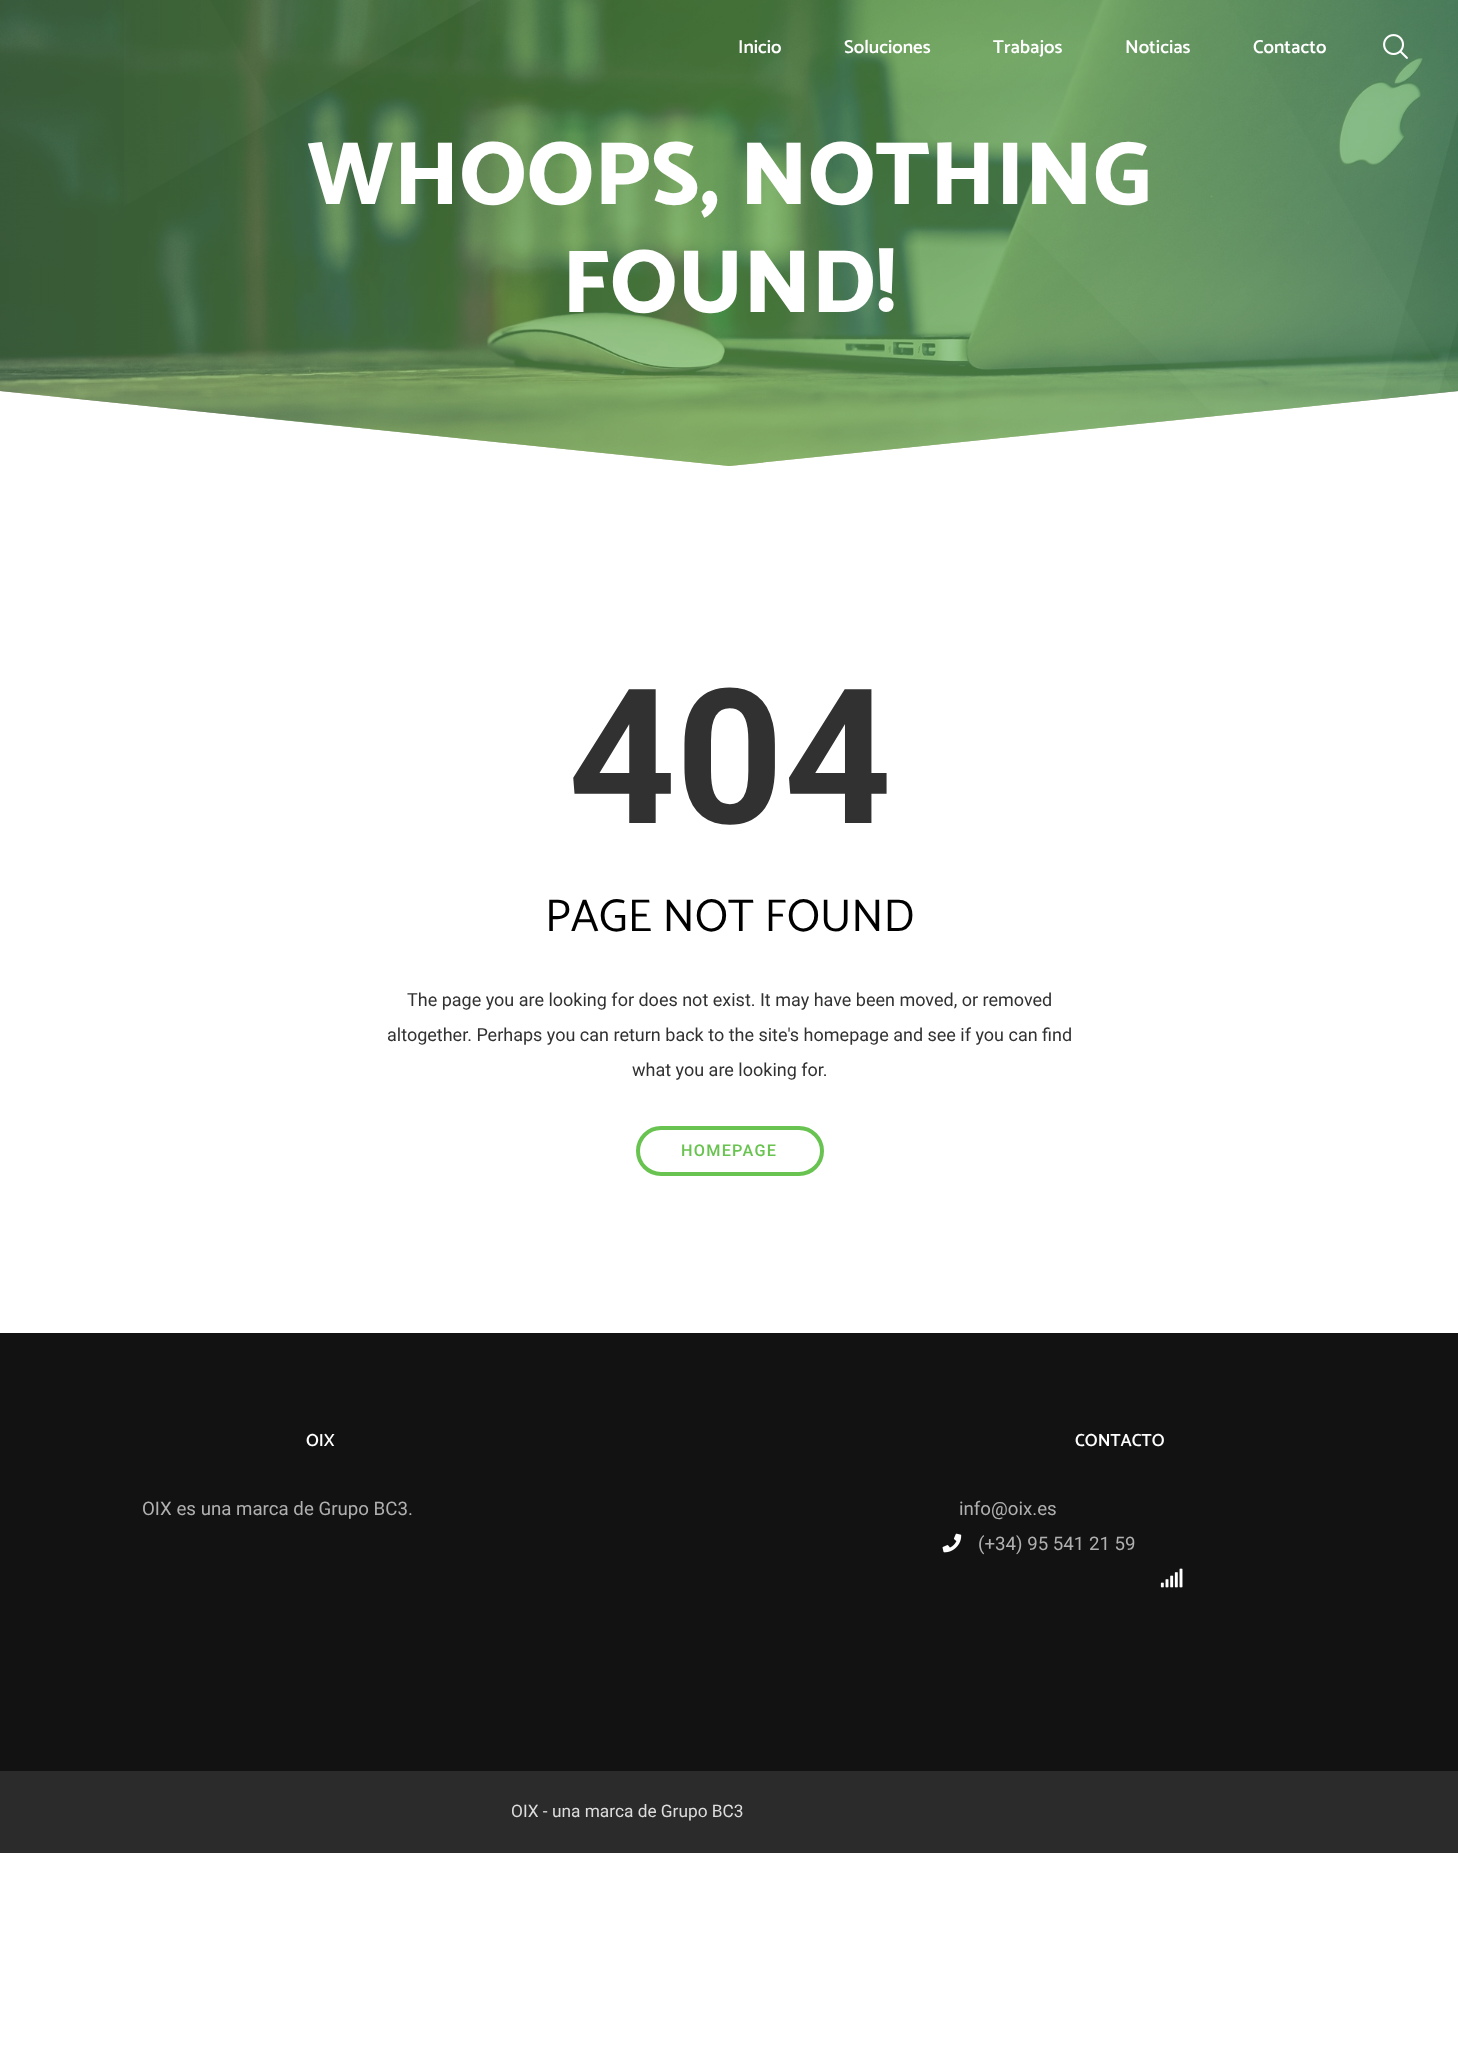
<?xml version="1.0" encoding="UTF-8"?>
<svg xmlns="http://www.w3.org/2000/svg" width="1458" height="2052">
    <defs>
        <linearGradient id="g1" gradientUnits="userSpaceOnUse" x1="0" y1="271" x2="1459" y2="271"><stop offset="0" stop-color="#586E6F" stop-opacity="0.4"/><stop offset="0.5" stop-color="#69C350" stop-opacity="0.4"/><stop offset="1" stop-color="#0F7860" stop-opacity="0.4"/></linearGradient>
    </defs>
    <rect width="100%" height="100%" fill="#FFFFFF"/>
    <image x="0" y="0" width="1458" height="466" href="img_02.png"/>
    <path d="M 0 0 V 391 L 729 466 L 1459 391 V 0 Z" fill="url(#g1)"/>
    <image x="124" y="0" width="1334" height="466" href="img_03.png"/>
    <path d="M 729 0 V 466 L 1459 391 V 0 Z" fill="#69C350" fill-opacity="0.3"/>
    <text x="738" y="53" font-family="Catamaran" font-size="18.75" font-weight="600" fill="#FFFFFF">Inicio</text>
    <text x="844" y="53" font-family="Catamaran" font-size="18.75" font-weight="600" fill="#FFFFFF">Soluciones</text>
    <text x="993" y="53" font-family="Catamaran" font-size="18.75" font-weight="600" fill="#FFFFFF">Trabajos</text>
    <text x="1125" y="53" font-family="Catamaran" font-size="18.75" font-weight="600" fill="#FFFFFF">Noticias</text>
    <text x="1253" y="53" font-family="Catamaran" font-size="18.75" font-weight="600" fill="#FFFFFF">Contacto</text>
    <image x="1383" y="34" width="25" height="25" href="img_01.png"/>
    <path d="M 0 0 H 729 V 466 L 0 391 Z" fill="#69C350" fill-opacity="0.3"/>
    <text x="307" y="204" font-family="Catamaran" font-size="90" font-weight="800" fill="#FFFFFF">WHOOPS, NOTHING</text>
    <text x="562" y="312" font-family="Catamaran" font-size="90" font-weight="800" fill="#FFFFFF">FOUND!</text>
    <text x="568" y="823" font-family="Roboto" font-size="188" font-weight="700" fill="#313131">404</text>
    <text x="545" y="931" font-family="Catamaran" font-size="46" fill="#000000">PAGE NOT FOUND</text>
    <text x="407" y="1006" font-family="Roboto" font-size="18" fill="#313131">The page you are looking for does not exist. It may have been moved, or removed</text>
    <text x="387" y="1041" font-family="Roboto" font-size="18" fill="#313131">altogether. Perhaps you can return back to the site's homepage and see if you can find</text>
    <text x="632" y="1076" font-family="Roboto" font-size="18" fill="#313131">what you are looking for.</text>
    <rect x="638" y="1128" width="184" height="46" rx="23" fill="none" stroke="#69C350" stroke-width="4"/>
    <text x="681" y="1156" font-family="Roboto" font-size="16.25" font-weight="500" letter-spacing="1.25" fill="#69C350">HOMEPAGE</text>
    <rect x="0" y="1771" width="1458" height="82" fill="#2B2B2B"/>
    <rect x="0" y="1333" width="1458" height="438" fill="#121212"/>
    <text x="306" y="1446" font-family="Catamaran" font-size="17.5" font-weight="600" fill="#FFFFFF">OIX</text>
    <text x="142" y="1515" font-family="Roboto" font-size="18.7" fill="#B0B0B0">OIX es una marca de Grupo BC3.</text>
    <text x="1075" y="1446" font-family="Catamaran" font-size="17.5" font-weight="600" fill="#FFFFFF">CONTACTO</text>
    <text x="959" y="1515" font-family="Roboto" font-size="18.7" fill="#B0B0B0">info@oix.es</text>
    <image x="942" y="1533" width="20" height="20" href="img_04.png"/>
    <text x="978" y="1550" font-family="Roboto" font-size="18.7" fill="#B0B0B0">(+34) 95 541 21 59</text>
    <image x="1160" y="1568" width="23" height="20" href="img_05.png"/>
    <text x="511" y="1817" font-family="Roboto" font-size="17.3" fill="#DDDDDD">OIX - una marca de Grupo BC3</text>
</svg>
